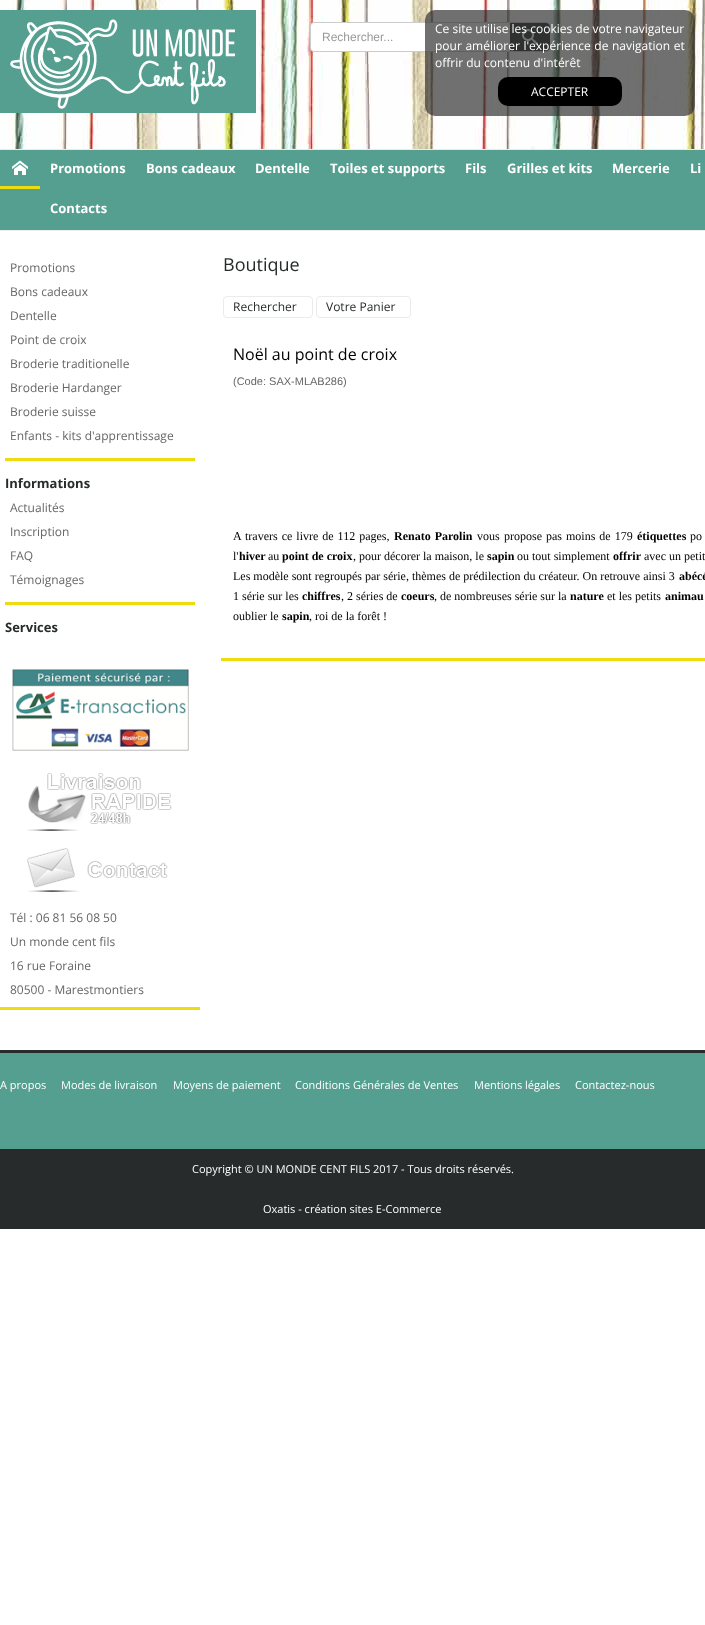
<?xml version="1.0" encoding="UTF-8"?>
<svg xmlns="http://www.w3.org/2000/svg" width="705" height="1625">
    <rect width="100%" height="100%" fill="#FFFFFF"/>
    <image x="0" y="0" width="705" height="149" href="img_01.png"/>
    <rect x="310.5" y="22.5" width="239" height="29" rx="3.5" fill="#FFFFFF" stroke="#CCCCCC"/>
    <path d="M 510 23 H 546 C 548 23 550 25 550 27 V 47 C 550 49 548 51 546 51 H 510 Z" fill="#272B2B"/>
    <image x="522" y="29" width="16" height="16" href="img_03.png"/>
    <rect x="425" y="10" width="270" height="106" rx="10" fill="#333333" fill-opacity="0.7"/>
    <text font-family="Open Sans" font-size="12" fill="#FFFFFF">
        <tspan x="435" y="33">Ce site utilise les cookies de votre navigateur</tspan>
        <tspan x="435" y="50" word-spacing="0.5">pour améliorer l'expérience de navigation et</tspan>
        <tspan x="435" y="67">offrir du contenu d'intérêt</tspan>
    </text>
    <rect x="498" y="77" width="124" height="29" rx="10" fill="#000000"/>
    <text x="531" y="96" font-family="Open Sans" font-size="12" fill="#FFFFFF">ACCEPTER</text>
    <rect x="0" y="150" width="705" height="80" fill="#559F90"/>
    <rect x="0" y="230" width="705" height="1" fill="#EEEEEE"/>
    <rect x="0" y="149" width="705" height="1" fill="#EBEBEB"/>
    <image x="0" y="10" width="256" height="103" href="img_02.png"/>
    <text x="322" y="41" font-family="Liberation Sans" font-size="12" fill="#999999">Rechercher...</text>
    <image x="12" y="160" width="16" height="15" href="img_04.png"/>
    <rect x="0" y="186" width="40" height="3" fill="#ECDD10"/>
    <text x="50" y="173" font-family="Open Sans" font-size="13" font-weight="700" fill="#FFFFFF">Promotions</text>
    <text x="146" y="173" font-family="Open Sans" font-size="13" font-weight="700" fill="#FFFFFF">Bons cadeaux</text>
    <text x="255" y="173" font-family="Open Sans" font-size="13" font-weight="700" fill="#FFFFFF">Dentelle</text>
    <text x="330" y="173" font-family="Open Sans" font-size="13" font-weight="700" fill="#FFFFFF">Toiles et supports</text>
    <text x="465" y="173" font-family="Open Sans" font-size="13" font-weight="700" fill="#FFFFFF">Fils</text>
    <text x="507" y="173" font-family="Open Sans" font-size="13" font-weight="700" fill="#FFFFFF">Grilles et kits</text>
    <text x="612" y="173" font-family="Open Sans" font-size="13" font-weight="700" fill="#FFFFFF">Mercerie</text>
    <text x="690" y="173" font-family="Open Sans" font-size="13" font-weight="700" fill="#FFFFFF">Li</text>
    <text x="50" y="213" font-family="Open Sans" font-size="13" font-weight="700" fill="#FFFFFF">Contacts</text>
    <rect x="0" y="1007" width="200" height="3" fill="#ECDD10"/>
    <text x="10" y="272" font-family="Open Sans" font-size="12" fill="#666666">Promotions</text>
    <text x="10" y="296" font-family="Open Sans" font-size="12" fill="#666666">Bons cadeaux</text>
    <text x="10" y="320" font-family="Open Sans" font-size="12" fill="#666666">Dentelle</text>
    <text x="10" y="344" font-family="Open Sans" font-size="12" fill="#666666">Point de croix</text>
    <text x="10" y="368" font-family="Open Sans" font-size="12" fill="#666666">Broderie traditionelle</text>
    <text x="10" y="392" font-family="Open Sans" font-size="12" fill="#666666">Broderie Hardanger</text>
    <text x="10" y="416" font-family="Open Sans" font-size="12" fill="#666666">Broderie suisse</text>
    <text x="10" y="440" font-family="Open Sans" font-size="12" fill="#666666">Enfants - kits d'apprentissage</text>
    <rect x="5" y="458" width="190" height="3" fill="#ECDD10"/>
    <text x="5" y="488" font-family="Open Sans" font-size="13" font-weight="700" fill="#272B2B">Informations</text>
    <text x="10" y="512" font-family="Open Sans" font-size="12" fill="#666666">Actualités</text>
    <text x="10" y="536" font-family="Open Sans" font-size="12" fill="#666666">Inscription</text>
    <text x="10" y="560" font-family="Open Sans" font-size="12" fill="#666666">FAQ</text>
    <text x="10" y="584" font-family="Open Sans" font-size="12" fill="#666666">Témoignages</text>
    <rect x="5" y="602" width="190" height="3" fill="#ECDD10"/>
    <text x="5" y="632" font-family="Open Sans" font-size="13" font-weight="700" fill="#272B2B">Services</text>
    <image x="12" y="669" width="177" height="82" href="img_05.png"/>
    <image x="27" y="773" width="145" height="58" href="img_06.png"/>
    <image x="27" y="848" width="141" height="44" href="img_07.png"/>
    <text x="10" y="922" font-family="Open Sans" font-size="12" fill="#666666">Tél : 06 81 56 08 50</text>
    <text x="10" y="946" font-family="Open Sans" font-size="12" fill="#666666">Un monde cent fils</text>
    <text x="10" y="970" font-family="Open Sans" font-size="12" fill="#666666">16 rue Foraine</text>
    <text x="10" y="994" font-family="Open Sans" font-size="12" fill="#666666">80500 - Marestmontiers</text>
    <text x="223" y="271" font-family="Open Sans" font-size="18" fill="#272B2B">Boutique</text>
    <rect x="223.5" y="296.5" width="89" height="21" rx="3.5" fill="none" stroke="#EBEBEB"/>
    <text x="233" y="311" font-family="Open Sans" font-size="12" fill="#272B2B">Rechercher</text>
    <rect x="316.5" y="296.5" width="94" height="21" rx="3.5" fill="none" stroke="#EBEBEB"/>
    <text x="326" y="311" font-family="Open Sans" font-size="12" fill="#272B2B">Votre Panier</text>
    <rect x="221" y="658" width="484" height="3" fill="#ECDD10"/>
    <text x="233" y="360" font-family="Open Sans" font-size="16" fill="#000000">Noël au point de croix</text>
    <text x="233" y="385" font-family="Liberation Sans" font-size="11" fill="#666666">(Code: SAX-MLAB286)</text>
    <text x="233" y="540" word-spacing="1" font-family="Liberation Serif" font-size="12" fill="#000000">A travers ce livre de 112 pages,</text>
    <text x="394" y="540" word-spacing="1" font-family="Liberation Serif" font-size="12" font-weight="700" fill="#000000">Renato Parolin</text>
    <text x="477" y="540" font-family="Liberation Serif" font-size="12" fill="#000000">vous</text>
    <text x="504" y="540" word-spacing="1" font-family="Liberation Serif" font-size="12" fill="#000000">propose pas moins de 179</text>
    <text x="637" y="540" font-family="Liberation Serif" font-size="12" font-weight="700" fill="#000000">étiquettes</text>
    <text x="690" y="540" font-family="Liberation Serif" font-size="12" fill="#000000">po</text>
    <text x="233" y="560" font-family="Liberation Serif" font-size="12" fill="#000000">l'</text>
    <text x="239" y="560" font-family="Liberation Serif" font-size="12" font-weight="700" fill="#000000">hiver</text>
    <text x="268" y="560" font-family="Liberation Serif" font-size="12" fill="#000000">au</text>
    <text x="282" y="560" font-family="Liberation Serif" font-size="12" font-weight="700" fill="#000000">point de croix</text>
    <text x="353" y="560" font-family="Liberation Serif" font-size="12" fill="#000000">, pour décorer la maison, le</text>
    <text x="487" y="560" font-family="Liberation Serif" font-size="12" font-weight="700" fill="#000000">sapin</text>
    <text x="517" y="560" font-family="Liberation Serif" font-size="12" fill="#000000">ou tout simplement</text>
    <text x="613" y="560" font-family="Liberation Serif" font-size="12" font-weight="700" fill="#000000">offrir</text>
    <text x="644" y="560" font-family="Liberation Serif" font-size="12" fill="#000000">avec un petit</text>
    <text x="233" y="580" font-family="Liberation Serif" font-size="12" fill="#000000">Les modèle sont regroupés par série, thèmes de prédilection du créateur. On retrouve ainsi 3</text>
    <text x="679" y="580" font-family="Liberation Serif" font-size="12" font-weight="700" fill="#000000">abécé</text>
    <text x="233" y="600" font-family="Liberation Serif" font-size="12" fill="#000000">1 série sur les</text>
    <text x="302" y="600" font-family="Liberation Serif" font-size="12" font-weight="700" fill="#000000">chiffres</text>
    <text x="341" y="600" font-family="Liberation Serif" font-size="12" fill="#000000">, 2 séries de</text>
    <text x="401" y="600" font-family="Liberation Serif" font-size="12" font-weight="700" fill="#000000">coeurs</text>
    <text x="434" y="600" font-family="Liberation Serif" font-size="12" fill="#000000">, de nombreuses série sur la</text>
    <text x="570" y="600" font-family="Liberation Serif" font-size="12" font-weight="700" fill="#000000">nature</text>
    <text x="607" y="600" font-family="Liberation Serif" font-size="12" fill="#000000">et les petits</text>
    <text x="665" y="600" font-family="Liberation Serif" font-size="12" font-weight="700" fill="#000000">animau</text>
    <text x="233" y="620" font-family="Liberation Serif" font-size="12" fill="#000000">oublier le</text>
    <text x="282" y="620" font-family="Liberation Serif" font-size="12" font-weight="700" fill="#000000">sapin</text>
    <text x="309" y="620" font-family="Liberation Serif" font-size="12" fill="#000000">, roi de la forêt !</text>
    <rect x="0" y="1053" width="705" height="96" fill="#559F90"/>
    <rect x="0" y="1050" width="705" height="3" fill="#272B2B"/>
    <text x="0" y="1089" font-family="Open Sans" font-size="11" fill="#FFFFFF">A propos</text>
    <text x="61" y="1089" font-family="Open Sans" font-size="11" fill="#FFFFFF">Modes de livraison</text>
    <text x="173" y="1089" font-family="Open Sans" font-size="11" fill="#FFFFFF">Moyens de paiement</text>
    <text x="295" y="1089" font-family="Open Sans" font-size="11" fill="#FFFFFF">Conditions Générales de Ventes</text>
    <text x="474" y="1089" font-family="Open Sans" font-size="11" fill="#FFFFFF">Mentions légales</text>
    <text x="575" y="1089" font-family="Open Sans" font-size="11" fill="#FFFFFF">Contactez-nous</text>
    <rect x="0" y="1149" width="705" height="80" fill="#272B2B"/>
    <text x="192" y="1173" font-family="Open Sans" font-size="11" fill="#FFFFFF">Copyright © UN MONDE CENT FILS 2017 - Tous droits réservés.</text>
    <text x="263" y="1213" font-family="Open Sans" font-size="11" fill="#FFFFFF">Oxatis - création sites E-Commerce</text>
</svg>
